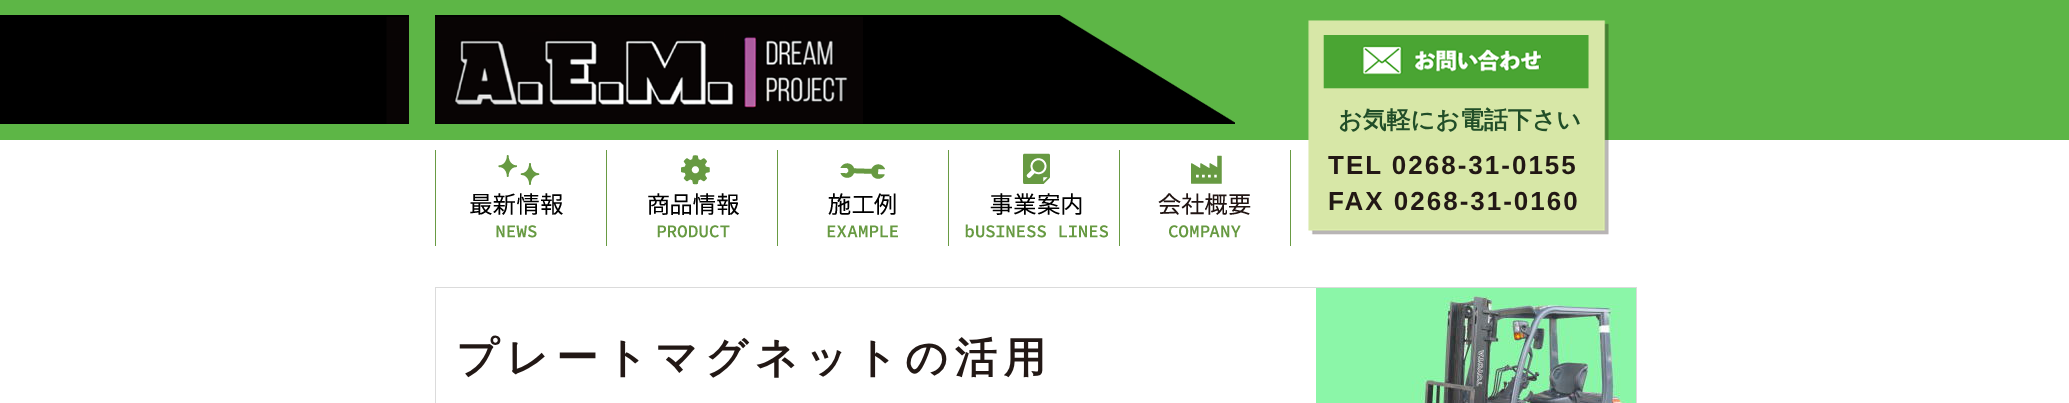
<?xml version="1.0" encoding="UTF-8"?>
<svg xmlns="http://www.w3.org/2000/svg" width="2069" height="403">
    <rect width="100%" height="100%" fill="#FFFFFF"/>
    <rect x="435" y="150" width="1" height="96" fill="#699B43"/>
    <image x="470" y="155" width="93" height="83" href="img_01.png"/>
    <rect x="606" y="150" width="1" height="96" fill="#699B43"/>
    <image x="648" y="155" width="91" height="83" href="img_02.png"/>
    <rect x="777" y="150" width="1" height="96" fill="#699B43"/>
    <image x="827" y="163" width="71" height="75" href="img_03.png"/>
    <rect x="948" y="150" width="1" height="96" fill="#699B43"/>
    <image x="965" y="153" width="143" height="85" href="img_04.png"/>
    <rect x="1290" y="150" width="1" height="96" fill="#699B43"/>
    <rect x="1119" y="150" width="1" height="96" fill="#699B43"/>
    <image x="1158" y="155" width="93" height="83" href="img_05.png"/>
    <rect x="0" y="0" width="2069" height="140" fill="#5DB646"/>
    <image x="0" y="15" width="409" height="109" href="img_06.png"/>
    <image x="435" y="15" width="800" height="109" href="img_07.png"/>
    <image x="1308" y="20" width="301" height="215" href="img_08.png"/>
    <image x="1323" y="35" width="266" height="54" href="img_09.png"/>
    <text x="1338" y="128" font-family="WenQuanYi Zen Hei" font-size="24" font-weight="700" fill="#214E28">お気軽にお電話下さい</text>
    <text font-family="Liberation Sans" font-size="26" font-weight="700" letter-spacing="2" fill="#221815">
        <tspan x="1328" y="174">TEL 0268-31-0155</tspan>
        <tspan x="1328" y="210">FAX 0268-31-0160</tspan>
    </text>
    <rect x="435.5" y="287.5" width="1201" height="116" fill="none" stroke="#DBDBDB"/>
    <text x="456" y="372" font-family="WenQuanYi Zen Hei" font-size="42" font-weight="700" letter-spacing="7" fill="#221815">プレートマグネットの活用</text>
    <image x="1316" y="288" width="320" height="115" href="img_10.png"/>
</svg>
